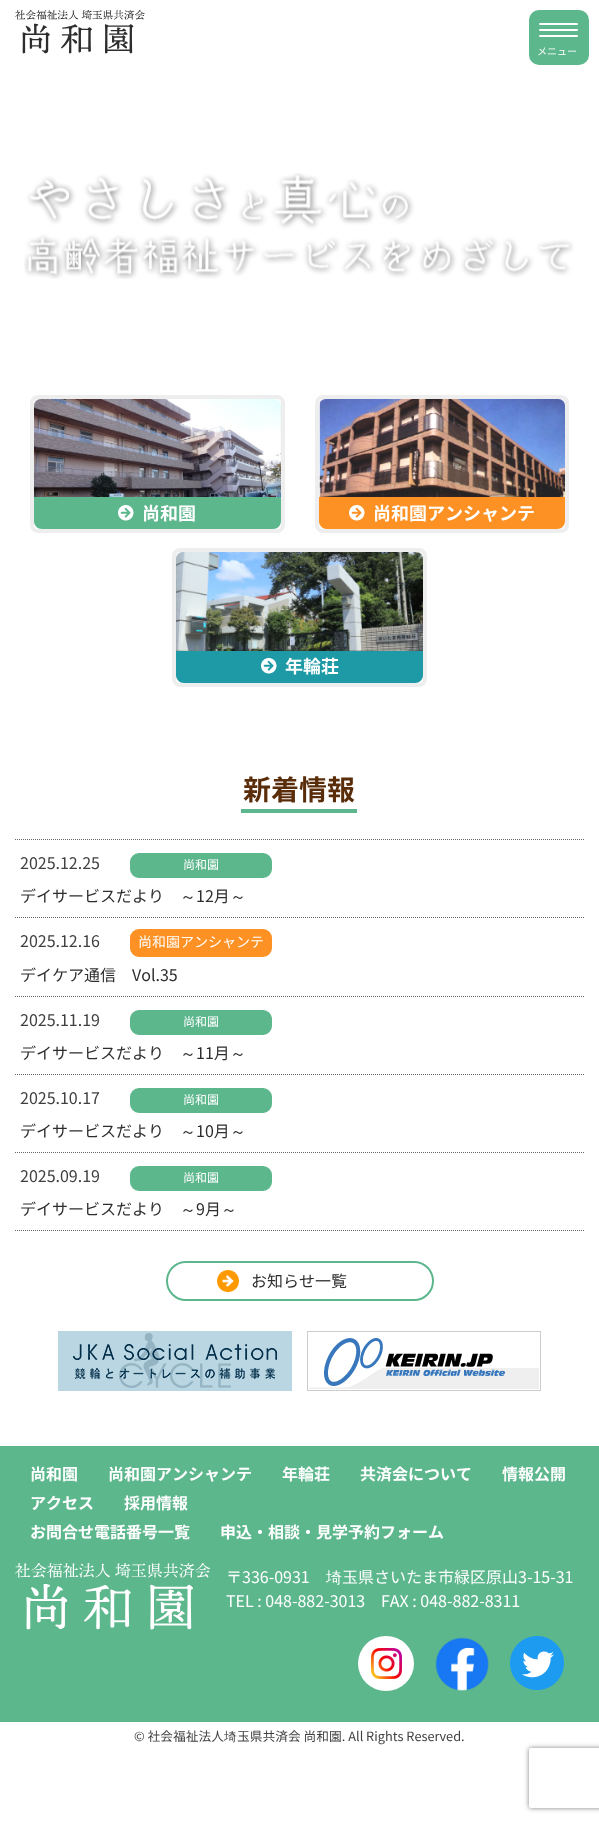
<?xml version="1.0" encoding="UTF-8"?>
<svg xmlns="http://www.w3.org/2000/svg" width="599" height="1822">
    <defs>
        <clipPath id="clip1"><path d="M 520 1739 H 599 V 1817 H 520 Z M 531 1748 H 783 C 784 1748 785 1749 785 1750 V 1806 C 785 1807 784 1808 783 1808 H 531 C 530 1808 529 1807 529 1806 V 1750 C 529 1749 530 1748 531 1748 Z" clip-rule="evenodd"/></clipPath>
        <filter id="blur1" x="-50%" y="-200%" width="200%" height="500%"><feGaussianBlur stdDeviation="2.5"/></filter>
    </defs>
    <rect width="100%" height="100%" fill="#FFFFFF"/>
    <image x="15" y="10" width="130" height="44" href="img_01.png"/>
    <rect x="529" y="10" width="60" height="55" rx="10" fill="#5DB78D"/>
    <rect x="539" y="23" width="39" height="2" rx="1" fill="#FFFFFF"/>
    <rect x="539" y="29" width="39" height="2" rx="1" fill="#FFFFFF"/>
    <rect x="539" y="35" width="39" height="2" rx="1" fill="#FFFFFF"/>
    <text x="537" y="55" font-family="Noto Sans JP" font-size="10" fill="#FFFFFF">メニュー</text>
    <image x="24" y="173" width="550" height="106" href="img_02.png"/>
    <rect x="32" y="397" width="251" height="134" rx="6" fill="none" stroke="#EEEEEE" stroke-width="4"/>
    <image x="34" y="399" width="247" height="123" href="img_03.png"/>
    <path d="M 34 497 H 281 V 521 C 281 525.5 277.5 529 273 529 H 42 C 37.5 529 34 525.5 34 521 Z" fill="#5DB78D"/>
    <image x="118" y="505" width="16" height="16" href="img_04.png"/>
    <text x="142" y="520" font-family="Noto Sans JP" font-size="18" font-weight="700" fill="#FFFFFF">尚和園</text>
    <rect x="317" y="397" width="250" height="134" rx="6" fill="none" stroke="#EEEEEE" stroke-width="4"/>
    <image x="319" y="399" width="246" height="123" href="img_05.png"/>
    <path d="M 319 497 H 565 V 521 C 565 525.5 561.5 529 557 529 H 327 C 322.5 529 319 525.5 319 521 Z" fill="#FE9123"/>
    <image x="349" y="505" width="16" height="16" href="img_06.png"/>
    <text x="373" y="520" font-family="Noto Sans JP" font-size="18" font-weight="700" fill="#FFFFFF">尚和園アンシャンテ</text>
    <rect x="174" y="550" width="251" height="135" rx="6" fill="none" stroke="#EEEEEE" stroke-width="4"/>
    <image x="176" y="552" width="247" height="124" href="img_07.png"/>
    <path d="M 176 651 H 423 V 675 C 423 679.5 419.5 683 415 683 H 184 C 179.5 683 176 679.5 176 675 Z" fill="#1D9AA6"/>
    <image x="261" y="658" width="16" height="16" href="img_08.png"/>
    <text x="285" y="673" font-family="Noto Sans JP" font-size="18" font-weight="700" fill="#FFFFFF">年輪荘</text>
    <text x="243" y="800" font-family="Noto Sans JP" font-size="28" font-weight="700" fill="#5A2D0A">新着情報</text>
    <rect x="241" y="809" width="116" height="4" fill="#5DB78D"/>
    <path d="M 15 839.5 H 584" fill="none" stroke="#666666" stroke-dasharray="1 1"/>
    <path d="M 15 917.5 H 584" fill="none" stroke="#666666" stroke-dasharray="1 1"/>
    <text x="20" y="869" font-family="Noto Sans JP" font-size="16" fill="#404040">2025.12.25</text>
    <rect x="131" y="854" width="140" height="23" rx="8" fill="#5DB78D" stroke="#5DB78D" stroke-width="2"/>
    <text x="183" y="869" font-family="Noto Sans JP" font-size="12" fill="#FFFFFF">尚和園</text>
    <text x="20" y="902" font-family="Noto Sans JP" font-size="16" fill="#2D2D2D">デイサービスだより</text>
    <text x="180" y="902" font-family="WenQuanYi Zen Hei" font-size="16" font-weight="500" fill="#2D2D2D">～</text>
    <text x="196" y="902" font-family="Noto Sans JP" font-size="16" fill="#2D2D2D">12月</text>
    <text x="230" y="902" font-family="WenQuanYi Zen Hei" font-size="16" font-weight="500" fill="#2D2D2D">～</text>
    <path d="M 15 996.5 H 584" fill="none" stroke="#666666" stroke-dasharray="1 1"/>
    <text x="20" y="947" font-family="Noto Sans JP" font-size="16" fill="#404040">2025.12.16</text>
    <rect x="131" y="930" width="140" height="26" rx="8" fill="#FE9123" stroke="#FE9123" stroke-width="2"/>
    <text x="138" y="947" font-family="Noto Sans JP" font-size="14" fill="#FFFFFF">尚和園アンシャンテ</text>
    <text x="20" y="981" font-family="Noto Sans JP" font-size="16" fill="#2D2D2D">デイケア通信　Vol.35</text>
    <path d="M 15 1074.5 H 584" fill="none" stroke="#666666" stroke-dasharray="1 1"/>
    <text x="20" y="1026" font-family="Noto Sans JP" font-size="16" fill="#404040">2025.11.19</text>
    <rect x="131" y="1011" width="140" height="23" rx="8" fill="#5DB78D" stroke="#5DB78D" stroke-width="2"/>
    <text x="183" y="1026" font-family="Noto Sans JP" font-size="12" fill="#FFFFFF">尚和園</text>
    <text x="20" y="1059" font-family="Noto Sans JP" font-size="16" fill="#2D2D2D">デイサービスだより</text>
    <text x="180" y="1059" font-family="WenQuanYi Zen Hei" font-size="16" font-weight="500" fill="#2D2D2D">～</text>
    <text x="196" y="1059" font-family="Noto Sans JP" font-size="16" fill="#2D2D2D">11月</text>
    <text x="230" y="1059" font-family="WenQuanYi Zen Hei" font-size="16" font-weight="500" fill="#2D2D2D">～</text>
    <path d="M 15 1152.5 H 584" fill="none" stroke="#666666" stroke-dasharray="1 1"/>
    <text x="20" y="1104" font-family="Noto Sans JP" font-size="16" fill="#404040">2025.10.17</text>
    <rect x="131" y="1089" width="140" height="23" rx="8" fill="#5DB78D" stroke="#5DB78D" stroke-width="2"/>
    <text x="183" y="1104" font-family="Noto Sans JP" font-size="12" fill="#FFFFFF">尚和園</text>
    <text x="20" y="1137" font-family="Noto Sans JP" font-size="16" fill="#2D2D2D">デイサービスだより</text>
    <text x="180" y="1137" font-family="WenQuanYi Zen Hei" font-size="16" font-weight="500" fill="#2D2D2D">～</text>
    <text x="196" y="1137" font-family="Noto Sans JP" font-size="16" fill="#2D2D2D">10月</text>
    <text x="230" y="1137" font-family="WenQuanYi Zen Hei" font-size="16" font-weight="500" fill="#2D2D2D">～</text>
    <path d="M 15 1230.5 H 584" fill="none" stroke="#666666" stroke-dasharray="1 1"/>
    <text x="20" y="1182" font-family="Noto Sans JP" font-size="16" fill="#404040">2025.09.19</text>
    <rect x="131" y="1167" width="140" height="23" rx="8" fill="#5DB78D" stroke="#5DB78D" stroke-width="2"/>
    <text x="183" y="1182" font-family="Noto Sans JP" font-size="12" fill="#FFFFFF">尚和園</text>
    <text x="20" y="1215" font-family="Noto Sans JP" font-size="16" fill="#2D2D2D">デイサービスだより</text>
    <text x="180" y="1215" font-family="WenQuanYi Zen Hei" font-size="16" font-weight="500" fill="#2D2D2D">～</text>
    <text x="196" y="1215" font-family="Noto Sans JP" font-size="16" fill="#2D2D2D">9月</text>
    <text x="221" y="1215" font-family="WenQuanYi Zen Hei" font-size="16" font-weight="500" fill="#2D2D2D">～</text>
    <rect x="167" y="1262" width="266" height="38" rx="19" fill="none" stroke="#5DB78D" stroke-width="2"/>
    <image x="217" y="1270" width="22" height="22" href="img_09.png"/>
    <text x="251" y="1287" font-family="Noto Sans JP" font-size="16" fill="#2D2D2D">お知らせ一覧</text>
    <image x="58" y="1331" width="234" height="60" href="img_10.png"/>
    <image x="307" y="1331" width="234" height="60" href="img_11.png"/>
    <rect x="0" y="1446" width="599" height="276" fill="#5DB78D"/>
    <text x="30" y="1480" font-family="Noto Sans JP" font-size="16" font-weight="700" fill="#FFFFFF">尚和園</text>
    <text x="108" y="1480" font-family="Noto Sans JP" font-size="16" font-weight="700" fill="#FFFFFF">尚和園アンシャンテ</text>
    <text x="282" y="1480" font-family="Noto Sans JP" font-size="16" font-weight="700" fill="#FFFFFF">年輪荘</text>
    <text x="360" y="1480" font-family="Noto Sans JP" font-size="16" font-weight="700" fill="#FFFFFF">共済会について</text>
    <text x="502" y="1480" font-family="Noto Sans JP" font-size="16" font-weight="700" fill="#FFFFFF">情報公開</text>
    <text x="30" y="1509" font-family="Noto Sans JP" font-size="16" font-weight="700" fill="#FFFFFF">アクセス</text>
    <text x="124" y="1509" font-family="Noto Sans JP" font-size="16" font-weight="700" fill="#FFFFFF">採用情報</text>
    <text x="30" y="1538" font-family="Noto Sans JP" font-size="16" font-weight="700" fill="#FFFFFF">お問合せ電話番号一覧</text>
    <text x="220" y="1538" font-family="Noto Sans JP" font-size="16" font-weight="700" fill="#FFFFFF">申込・相談・見学予約フォーム</text>
    <image x="15" y="1563" width="196" height="67" href="img_12.png"/>
    <text x="226" y="1583" font-family="Noto Sans JP" font-size="16" fill="#FFFFFF">〒336-0931</text>
    <text x="326" y="1583" font-family="WenQuanYi Zen Hei" font-size="16" font-weight="500" fill="#FFFFFF">埼</text>
    <text x="342" y="1583" font-family="Noto Sans JP" font-size="16" fill="#FFFFFF">玉県さいたま市緑区原山3-15-31</text>
    <text x="226" y="1607" font-family="Noto Sans JP" font-size="16" fill="#FFFFFF">TEL : 048-882-3013</text>
    <text x="381" y="1607" font-family="Noto Sans JP" font-size="16" fill="#FFFFFF">FAX : 048-882-8311</text>
    <image x="358" y="1636" width="56" height="55" href="img_13.png"/>
    <image x="435" y="1637" width="54" height="54" href="img_14.png"/>
    <image x="510" y="1636" width="54" height="54" href="img_15.png"/>
    <text x="134" y="1741" font-family="Noto Sans JP" font-size="12.75" fill="#404040">© 社会福祉法人</text>
    <text x="224" y="1741" font-family="WenQuanYi Zen Hei" font-size="12.75" font-weight="500" fill="#404040">埼</text>
    <text x="237" y="1741" font-family="Noto Sans JP" font-size="12.75" fill="#404040">玉県共済会 尚和園. All Rights Reserved.</text>
    <g clip-path="url(#clip1)">
        <rect x="529" y="1748" width="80" height="60" rx="2" fill="#808080" filter="url(#blur1)"/>
    </g>
</svg>
